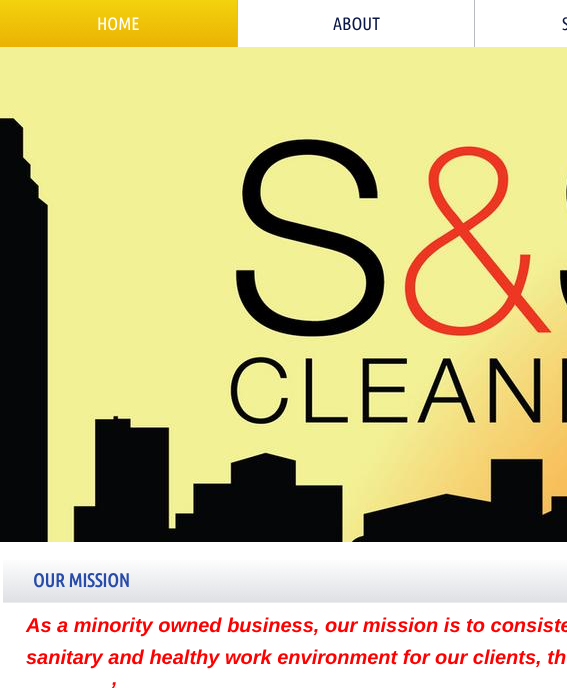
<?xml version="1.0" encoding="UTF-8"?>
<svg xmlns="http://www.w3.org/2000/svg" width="567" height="688">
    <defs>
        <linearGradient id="g1" gradientUnits="userSpaceOnUse" x1="119" y1="-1" x2="119" y2="47"><stop offset="0" stop-color="#F3D30E"/><stop offset="1" stop-color="#EBB203"/></linearGradient>
        <linearGradient id="g2" gradientUnits="userSpaceOnUse" x1="480" y1="557" x2="480" y2="602"><stop offset="0" stop-color="#FFFFFF"/><stop offset="1" stop-color="#DEE0E4"/></linearGradient>
    </defs>
    <rect width="100%" height="100%" fill="#FFFFFF"/>
    <rect x="0" y="0" width="237" height="47" fill="url(#g1)"/>
    <text x="97" y="30" font-family="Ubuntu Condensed" font-size="18" fill="#FFFFFF">HOME</text>
    <rect x="237" y="0" width="1" height="47" fill="#B9BABE"/>
    <text x="333" y="30" font-family="Ubuntu Condensed" font-size="18" fill="#091647">ABOUT</text>
    <rect x="474" y="0" width="1" height="47" fill="#B9BABE"/>
    <text x="562" y="30" font-family="Ubuntu Condensed" font-size="18" fill="#091647">S</text>
    <image x="0" y="47" width="567" height="495" href="img_01.png"/>
    <rect x="3" y="560" width="564" height="42" fill="url(#g2)"/>
    <rect x="3" y="602" width="564" height="1" fill="#EBECED"/>
    <text x="33" y="587" font-family="Ubuntu Condensed" font-size="19" font-weight="700" fill="#284BA9">OUR MISSION</text>
    <text font-family="Liberation Sans" font-size="20" font-weight="700" font-style="italic" fill="#FF0000">
        <tspan x="26" y="632">As a minority owned business, our mission is to consiste</tspan>
        <tspan x="26" y="664">sanitary and healthy work environment for our clients, th</tspan>
    </text>
    <text x="110" y="696" font-family="Liberation Sans" font-size="20" font-weight="700" font-style="italic" fill="#FF0000">’</text>
</svg>
